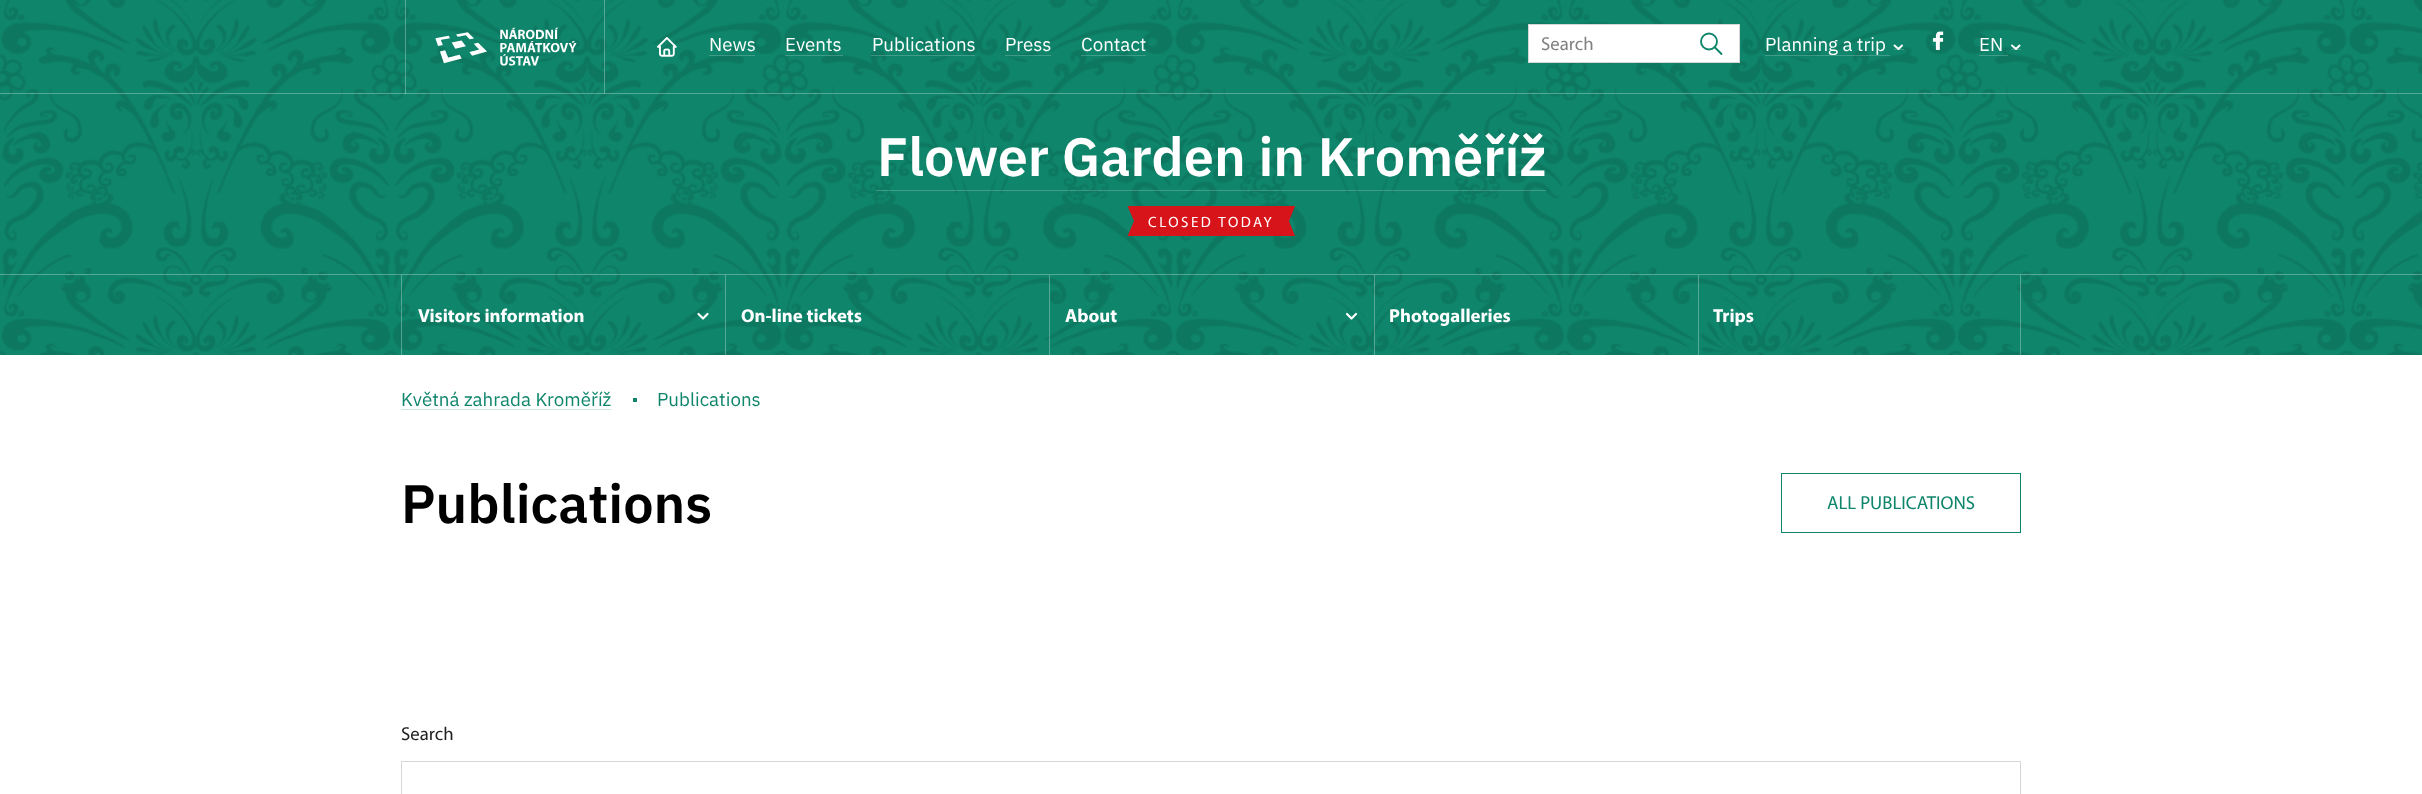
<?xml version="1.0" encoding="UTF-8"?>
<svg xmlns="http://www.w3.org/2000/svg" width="2422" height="794">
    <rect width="100%" height="100%" fill="#FFFFFF"/>
    <rect x="0" y="0" width="2422" height="355" fill="#0F856B"/>
    <image x="0" y="0" width="2422" height="94" href="img_01.png"/>
    <rect x="0" y="93" width="2422" height="1" fill="#FFFFFF" fill-opacity="0.3"/>
    <rect x="604" y="0" width="1" height="94" fill="#FFFFFF" fill-opacity="0.3"/>
    <rect x="405" y="0" width="1" height="94" fill="#FFFFFF" fill-opacity="0.3"/>
    <image x="435" y="27" width="142" height="39" href="img_02.png"/>
    <image x="657" y="37" width="20" height="20" href="img_03.png"/>
    <text x="709" y="51" font-family="IBM Plex Sans" font-size="18.75" fill="#FFFFFF">News</text>
    <rect x="709" y="55" width="46" height="1" fill="#FFFFFF" fill-opacity="0.2"/>
    <text x="785" y="51" font-family="IBM Plex Sans" font-size="18.75" fill="#FFFFFF">Events</text>
    <rect x="785" y="55" width="58" height="1" fill="#FFFFFF" fill-opacity="0.2"/>
    <text x="872" y="51" font-family="IBM Plex Sans" font-size="18.75" fill="#FFFFFF">Publications</text>
    <rect x="871" y="55" width="104" height="1" fill="#FFFFFF" fill-opacity="0.2"/>
    <text x="1005" y="51" font-family="IBM Plex Sans" font-size="18.75" fill="#FFFFFF">Press</text>
    <rect x="1005" y="55" width="46" height="1" fill="#FFFFFF" fill-opacity="0.2"/>
    <text x="1081" y="51" font-family="IBM Plex Sans" font-size="18.75" fill="#FFFFFF">Contact</text>
    <rect x="1081" y="55" width="65" height="1" fill="#FFFFFF" fill-opacity="0.2"/>
    <rect x="1528.5" y="24.5" width="211" height="38" fill="#FFFFFF" stroke="#DAD6D6"/>
    <text x="1541" y="50" font-family="Myriad" font-size="18.75" fill="#808080">Search</text>
    <circle cx="1709" cy="41.5" r="8" fill="none" stroke="#0F856B" stroke-width="1.9"/>
    <path d="M 1721.5 54 L 1714.5 47" fill="none" stroke="#0F856B" stroke-width="1.9" stroke-linecap="round" stroke-linejoin="round"/>
    <text x="1765" y="51" font-family="IBM Plex Sans" font-size="18.75" fill="#FFFFFF">Planning a trip</text>
    <rect x="1765" y="55" width="125" height="1" fill="#FFFFFF" fill-opacity="0.2"/>
    <rect x="1894" y="49" width="10" height="1" fill="#FFFFFF" fill-opacity="0.2"/>
    <path d="M 1902 45.5 L 1898.5 49 L 1894.5 45.5" fill="none" stroke="#FFFFFF" stroke-width="1.9" stroke-linecap="round" stroke-linejoin="round"/>
    <image x="1933" y="31" width="11" height="19" href="img_04.png"/>
    <text x="1979" y="51" font-family="IBM Plex Sans" font-size="18.75" fill="#FFFFFF">EN</text>
    <rect x="1979" y="55" width="29" height="1" fill="#FFFFFF" fill-opacity="0.2"/>
    <rect x="2011" y="49" width="10" height="1" fill="#FFFFFF" fill-opacity="0.2"/>
    <path d="M 2019.5 45.5 L 2016 49 L 2012 45.5" fill="none" stroke="#FFFFFF" stroke-width="1.9" stroke-linecap="round" stroke-linejoin="round"/>
    <image x="0" y="94" width="2422" height="261" href="img_05.png"/>
    <rect x="0" y="274" width="2422" height="1" fill="#FFFFFF" fill-opacity="0.3"/>
    <text x="877" y="176" font-family="IBM Plex Sans" font-size="54" font-weight="600" fill="#FFFFFF">Flower Garden in Kroměříž</text>
    <rect x="876" y="190" width="670" height="1" fill="#FFFFFF" fill-opacity="0.2"/>
    <rect x="1140" y="206" width="143" height="30" fill="#D7141A"/>
    <path d="M 1127.5 206 H 1140 L 1134 221 Z" fill="#D7141A"/>
    <rect x="1134" y="206" width="6" height="30" fill="#D7141A"/>
    <path d="M 1140 236 H 1127.5 L 1134 221 Z" fill="#D7141A"/>
    <text x="1148" y="227" font-family="Myriad" font-size="15" letter-spacing="2.5" fill="#FFFFFF">CLOSED TODAY</text>
    <path d="M 1282.5 206 H 1295 L 1289 221 Z M 1295 236 H 1282.5 L 1289 221 Z" fill="#D7141A"/>
    <rect x="1283" y="206" width="6" height="30" fill="#D7141A"/>
    <rect x="401" y="275" width="1" height="80" fill="#FFFFFF" fill-opacity="0.3"/>
    <text x="418" y="322" font-family="Myriad" font-size="18.75" font-weight="700" fill="#FFFFFF">Visitors information</text>
    <path d="M 707.5 314 L 703 318.5 L 698.5 314" fill="none" stroke="#FFFFFF" stroke-width="2.2" stroke-linecap="round" stroke-linejoin="round"/>
    <rect x="725" y="275" width="1" height="80" fill="#FFFFFF" fill-opacity="0.3"/>
    <text x="741" y="322" font-family="Myriad" font-size="18.75" font-weight="700" fill="#FFFFFF">On-line tickets</text>
    <rect x="1049" y="275" width="1" height="80" fill="#FFFFFF" fill-opacity="0.3"/>
    <text x="1065" y="322" font-family="Myriad" font-size="18.75" font-weight="700" fill="#FFFFFF">About</text>
    <path d="M 1356 314 L 1351.5 318.5 L 1347 314" fill="none" stroke="#FFFFFF" stroke-width="2.2" stroke-linecap="round" stroke-linejoin="round"/>
    <rect x="1374" y="275" width="1" height="80" fill="#FFFFFF" fill-opacity="0.3"/>
    <text x="1389" y="322" font-family="Myriad" font-size="18.75" font-weight="700" fill="#FFFFFF">Photogalleries</text>
    <rect x="2020" y="275" width="1" height="80" fill="#FFFFFF" fill-opacity="0.3"/>
    <rect x="1698" y="275" width="1" height="80" fill="#FFFFFF" fill-opacity="0.3"/>
    <text x="1713" y="322" font-family="Myriad" font-size="18.75" font-weight="700" fill="#FFFFFF">Trips</text>
    <text x="401" y="406" font-family="IBM Plex Sans" font-size="18.75" fill="#0F856B">Květná zahrada Kroměříž</text>
    <rect x="401" y="409" width="210" height="1" fill="#CFE7E1"/>
    <rect x="633" y="398" width="4" height="4" fill="#0F856B"/>
    <text x="657" y="406" font-family="IBM Plex Sans" font-size="18.75" fill="#0F856B">Publications</text>
    <text x="401" y="523" font-family="IBM Plex Sans" font-size="54" font-weight="600" fill="#000000">Publications</text>
    <rect x="1781.5" y="473.5" width="239" height="59" fill="none" stroke="#0F856B"/>
    <text x="1827" y="509" font-family="Myriad" font-size="18.75" fill="#0F856B">ALL PUBLICATIONS</text>
    <text x="401" y="740" font-family="Myriad" font-size="18.75" fill="#212121">Search</text>
    <rect x="401.5" y="761.5" width="1619" height="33" fill="none" stroke="#DAD6D6"/>
</svg>
